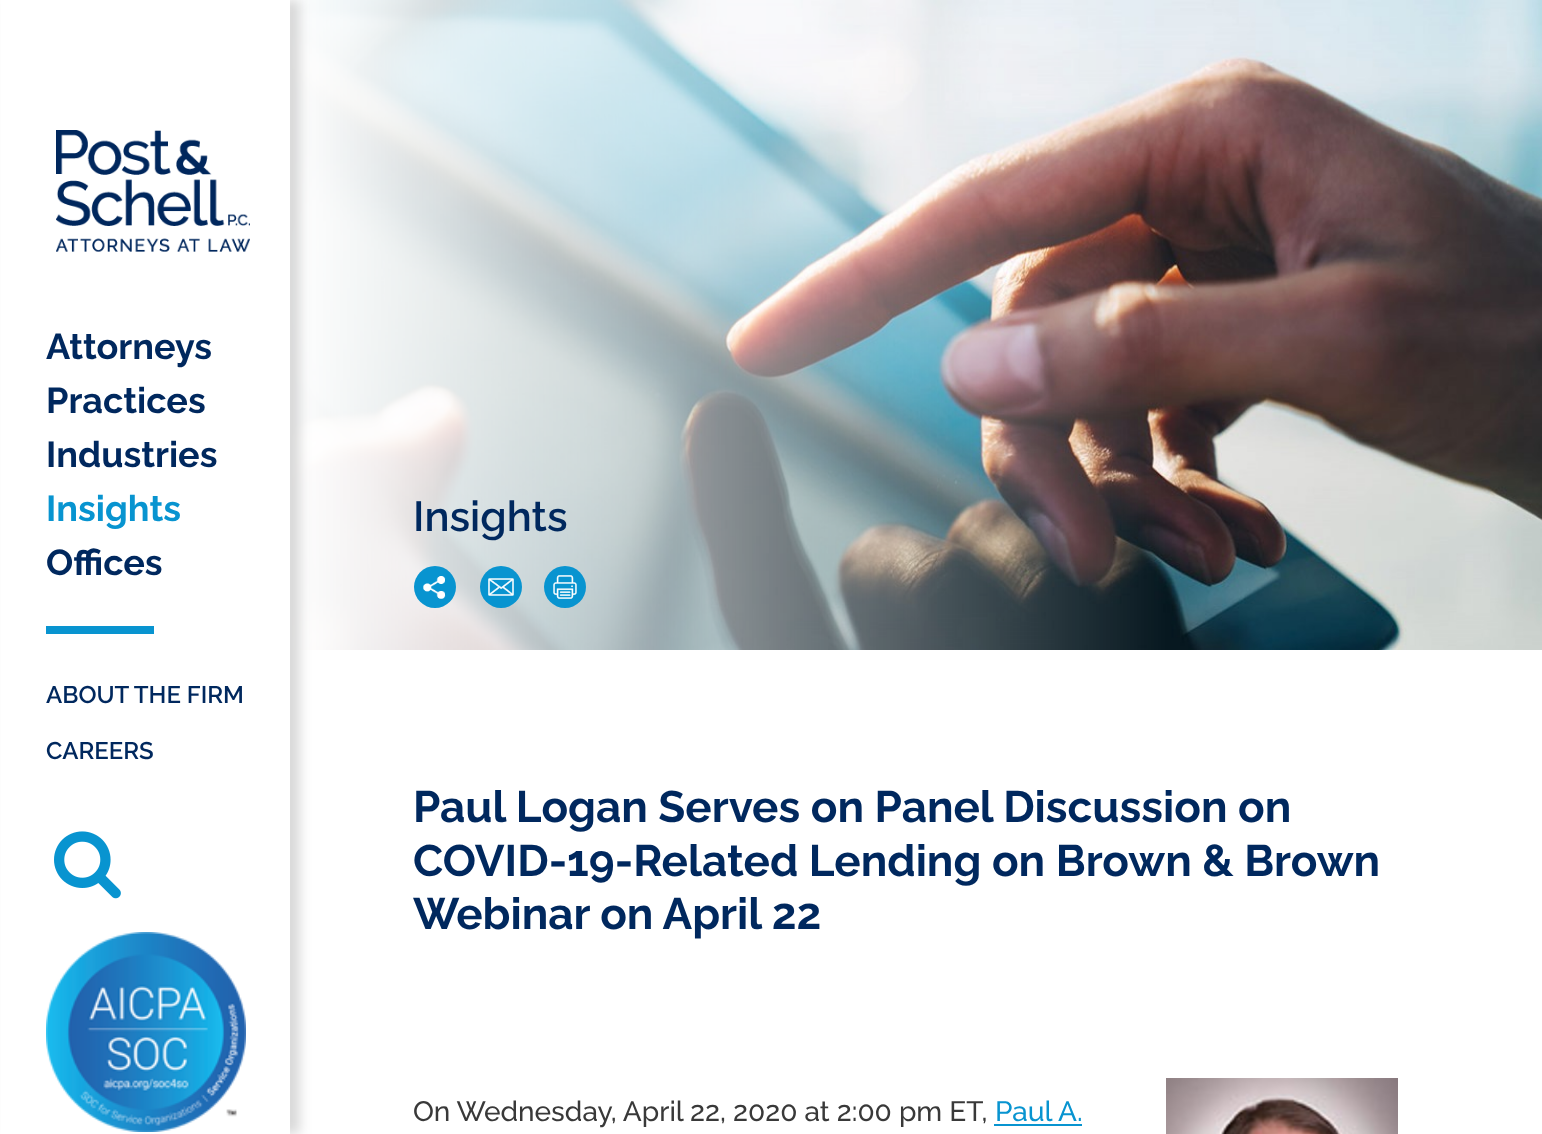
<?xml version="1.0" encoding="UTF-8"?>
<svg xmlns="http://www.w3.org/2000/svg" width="1542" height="1134">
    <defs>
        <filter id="blur1" x="-50%" y="-200%" width="200%" height="500%"><feGaussianBlur stdDeviation="6"/></filter>
    </defs>
    <rect width="100%" height="100%" fill="#FFFFFF"/>
    <image x="290" y="0" width="1252" height="650" href="img_04.png"/>
    <rect x="10" y="0" width="290" height="1134" fill="#000000" fill-opacity="0.15" filter="url(#blur1)"/>
    <rect x="1" y="0" width="289" height="1134" fill="#FFFFFF"/>
    <image x="56" y="130" width="194" height="122" href="img_01.png"/>
    <text font-family="Raleway" font-size="36" font-weight="700" fill="#00285E">
        <tspan x="46" y="359">Attorneys</tspan>
        <tspan x="46" y="413">Practices</tspan>
        <tspan x="46" y="467">Industries</tspan>
    </text>
    <text x="46" y="521" font-family="Raleway" font-size="36" font-weight="700" fill="#0894D0">Insights</text>
    <text x="46" y="575" font-family="Raleway" font-size="36" font-weight="700" fill="#00285E">Offices</text>
    <rect x="46" y="626" width="108" height="8" fill="#0894D0"/>
    <text x="46" y="703" font-family="Raleway" font-size="24" font-weight="600" fill="#00285E">ABOUT THE FIRM</text>
    <text x="46" y="759" font-family="Raleway" font-size="24" font-weight="600" fill="#00285E">CAREERS</text>
    <image x="54" y="831" width="67" height="68" href="img_02.png"/>
    <image x="46" y="932" width="200" height="200" href="img_03.png"/>
    <text x="413" y="531" font-family="Raleway" font-size="42" font-weight="600" fill="#00285E">Insights</text>
    <circle cx="435" cy="587" r="21" fill="#0894D0"/>
    <image x="423" y="576" width="23" height="23" href="img_05.png"/>
    <circle cx="501" cy="587" r="21" fill="#0894D0"/>
    <image x="488" y="578" width="26" height="18" href="img_06.png"/>
    <circle cx="565" cy="587" r="21" fill="#0894D0"/>
    <image x="553" y="575" width="24" height="24" href="img_07.png"/>
    <text font-family="Raleway" font-size="44" font-weight="700" fill="#00285E">
        <tspan x="413" y="822">Paul Logan Serves on Panel Discussion on</tspan>
        <tspan x="413" y="876">COVID-19-Related Lending on Brown &amp; Brown</tspan>
        <tspan x="413" y="929">Webinar on April 22</tspan>
    </text>
    <text x="413" y="1121" font-family="Raleway" font-size="28" font-weight="500" fill="#393939">On Wednesday, April 22, 2020 at 2:00 pm ET,</text>
    <text x="995" y="1121" font-family="Raleway" font-size="28" font-weight="500" fill="#0894D0">Paul A.</text>
    <rect x="994" y="1124" width="88" height="2" fill="#0894D0"/>
    <image x="1166" y="1078" width="232" height="56" href="img_08.png"/>
</svg>
